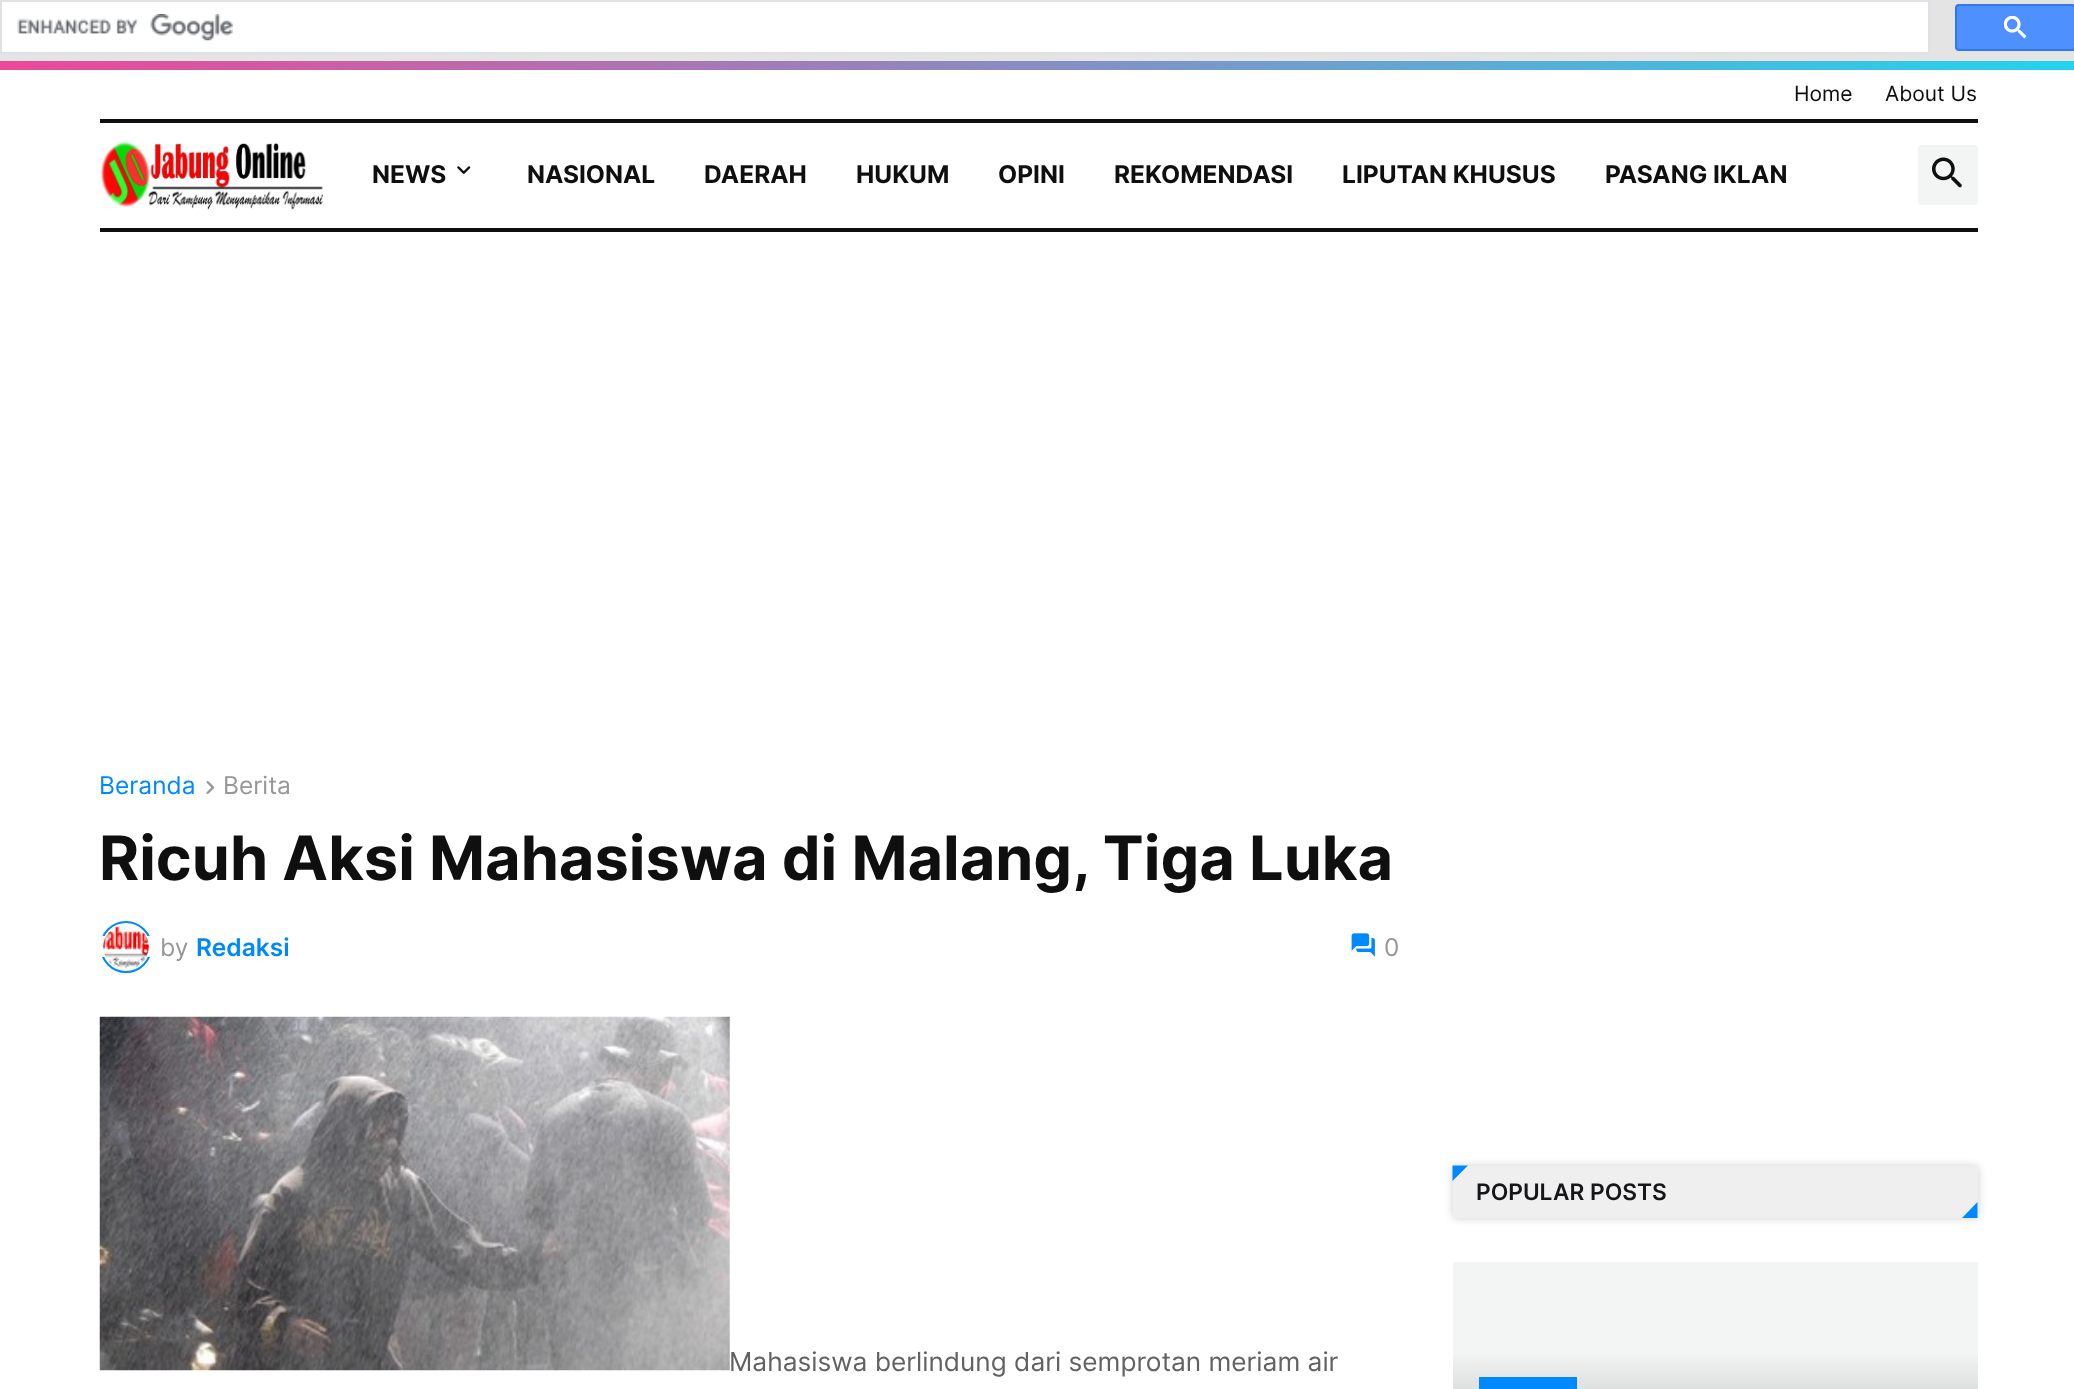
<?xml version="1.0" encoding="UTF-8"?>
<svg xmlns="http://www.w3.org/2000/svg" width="2074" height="1389">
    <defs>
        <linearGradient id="g1" gradientUnits="userSpaceOnUse" x1="517" y1="587" x2="1559" y2="-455"><stop offset="0" stop-color="#EC4899"/><stop offset="1" stop-color="#22D3EE"/></linearGradient>
        <filter id="blur1" x="-50%" y="-200%" width="200%" height="500%"><feGaussianBlur stdDeviation="4.5"/></filter>
        <linearGradient id="g2" gradientUnits="userSpaceOnUse" x1="1715" y1="1351" x2="1715" y2="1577"><stop offset="0" stop-color="#F3F5F5"/><stop offset="1" stop-color="#7A7B7B"/></linearGradient>
    </defs>
    <rect width="100%" height="100%" fill="#E4E4E4"/>
    <rect x="1" y="1" width="1928" height="52" fill="#FFFFFF" stroke="#DFE1E5" stroke-width="2"/>
    <image x="17" y="14" width="216" height="27" href="img_01.png"/>
    <rect x="1956" y="5" width="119" height="45" rx="3" fill="#4D90FE" stroke="#3079ED" stroke-width="2"/>
    <image x="2004" y="16" width="23" height="23" href="img_02.png"/>
    <rect x="0" y="70" width="2074" height="1319" fill="#FFFFFF"/>
    <rect x="0" y="61" width="2074" height="9" fill="url(#g1)"/>
    <text x="1794" y="101" font-family="Inter" font-size="21" fill="#0F0F0F">Home</text>
    <text x="1885" y="101" font-family="Inter" font-size="21" fill="#0F0F0F">About Us</text>
    <rect x="100" y="119" width="1878" height="4" fill="#0F0F0F"/>
    <rect x="100" y="228" width="1878" height="4" fill="#0F0F0F"/>
    <image x="100" y="141" width="224" height="69" href="img_03.png"/>
    <text x="372" y="183" font-family="Inter" font-size="24.5" font-weight="700" fill="#0F0F0F">NEWS</text>
    <image x="457" y="166" width="14" height="8" href="img_04.png"/>
    <text x="527" y="183" font-family="Inter" font-size="24.5" font-weight="700" fill="#0F0F0F">NASIONAL</text>
    <text x="704" y="183" font-family="Inter" font-size="24.5" font-weight="700" fill="#0F0F0F">DAERAH</text>
    <text x="856" y="183" font-family="Inter" font-size="24.5" font-weight="700" fill="#0F0F0F">HUKUM</text>
    <text x="998" y="183" font-family="Inter" font-size="24.5" font-weight="700" fill="#0F0F0F">OPINI</text>
    <text x="1114" y="183" font-family="Inter" font-size="24.5" font-weight="700" fill="#0F0F0F">REKOMENDASI</text>
    <text x="1342" y="183" font-family="Inter" font-size="24.5" font-weight="700" fill="#0F0F0F">LIPUTAN KHUSUS</text>
    <text x="1605" y="183" font-family="Inter" font-size="24.5" font-weight="700" fill="#0F0F0F">PASANG IKLAN</text>
    <rect x="1918" y="145" width="60" height="60" rx="4" fill="#F3F5F5"/>
    <image x="1932" y="157" width="30" height="31" href="img_05.png"/>
    <text x="99" y="794" font-family="Inter" font-size="24.5" fill="#0088FF">Beranda</text>
    <image x="206" y="781" width="9" height="13" href="img_06.png"/>
    <text x="223" y="794" font-family="Inter" font-size="24.5" fill="#979797">Berita</text>
    <text x="99" y="880" font-family="Inter" font-size="61.25" font-weight="700" fill="#0F0F0F">Ricuh Aksi Mahasiswa di Malang, Tiga Luka</text>
    <circle cx="126" cy="947" r="25" fill="none" stroke="#0088FF" stroke-width="2"/>
    <rect x="100" y="936" width="52" height="21" fill="#FFFFFF"/>
    <image x="103" y="924" width="46" height="45" href="img_07.png"/>
    <text x="160" y="956" font-family="Inter" font-size="24.5" fill="#979797">by</text>
    <text x="196" y="956" font-family="Inter" font-size="24.5" font-weight="600" fill="#0088FF">Redaksi</text>
    <image x="1351" y="933" width="24" height="24" href="img_08.png"/>
    <text x="1384" y="956" font-family="Inter" font-size="24.5" fill="#979797">0</text>
    <image x="99" y="1016" width="631" height="355" href="img_09.png"/>
    <text x="729" y="1371" font-family="Inter" font-size="26.25" fill="#626262">Mahasiswa berlindung dari semprotan meriam air</text>
    <rect x="1453" y="1166" width="525" height="52" rx="4" fill="#000000" fill-opacity="0.2" filter="url(#blur1)"/>
    <rect x="1453" y="1166" width="525" height="52" rx="4" fill="#EFEFEF"/>
    <path d="M 1452.5 1165.5 H 1468 L 1452.5 1181 Z" fill="#0088FF"/>
    <text x="1476" y="1200" font-family="Inter" font-size="22.75" font-weight="600" fill="#16161A">POPULAR POSTS</text>
    <path d="M 1977.5 1218 H 1962 L 1977.5 1202 Z" fill="#0088FF"/>
    <rect x="1453" y="1262" width="525" height="89" fill="#F3F5F5"/>
    <rect x="1453" y="1351" width="525" height="38" fill="url(#g2)"/>
    <rect x="1479" y="1377" width="98" height="12" fill="#0088FF"/>
</svg>
